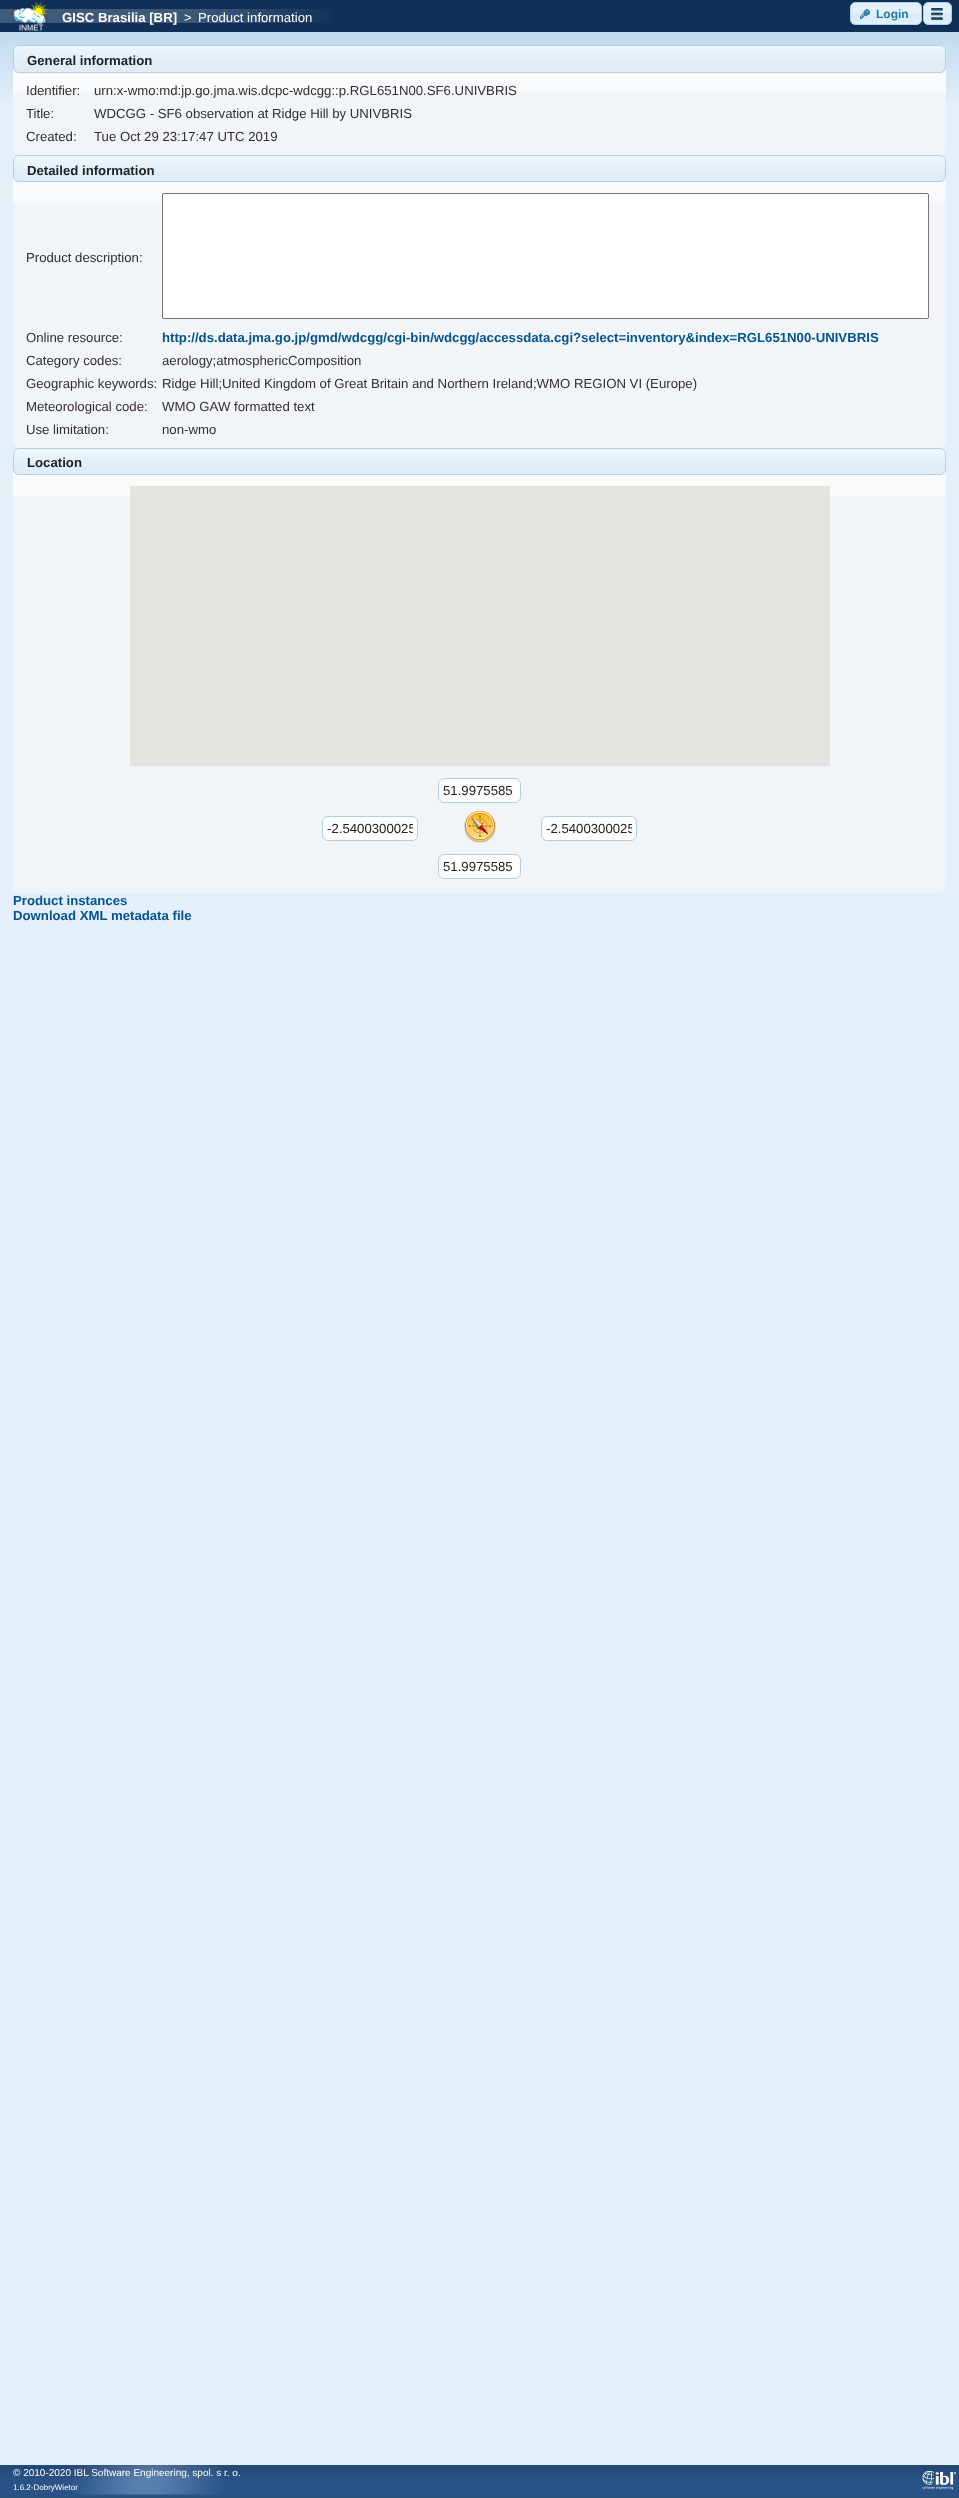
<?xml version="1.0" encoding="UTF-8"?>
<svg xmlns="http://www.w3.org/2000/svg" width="959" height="2498">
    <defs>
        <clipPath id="clip1"><rect x="327" y="821" width="86" height="15"/></clipPath>
        <clipPath id="clip2"><rect x="546" y="821" width="86" height="15"/></clipPath>
    </defs>
    <rect width="100%" height="100%" fill="#E4EFF9"/>
    <image x="0" y="32" width="959" height="71" href="img_01.png"/>
    <rect x="0" y="0" width="959" height="32" fill="#103058"/>
    <image x="0" y="9" width="333" height="14" href="img_02.png"/>
    <image x="12" y="1" width="36" height="30" href="img_03.png"/>
    <text x="62" y="22" font-family="Liberation Sans" font-size="13.2" font-weight="700" fill="#FFFFFF">GISC Brasilia [BR]</text>
    <text x="184" y="22" font-family="Liberation Sans" font-size="13.2" fill="#FFFFFF">&gt;</text>
    <text x="198" y="22" font-family="Liberation Sans" font-size="13.2" fill="#FFFFFF">Product information</text>
    <image x="850" y="2" width="72" height="23" href="img_04.png"/>
    <rect x="850.5" y="2.5" width="71" height="22" rx="5.5" fill="none" stroke="#AED0EA"/>
    <image x="860" y="9" width="10" height="10" href="img_05.png"/>
    <text x="876" y="18" font-family="Liberation Sans" font-size="12" font-weight="700" fill="#2779AA">Login</text>
    <image x="923" y="2" width="29" height="23" href="img_06.png"/>
    <rect x="923.5" y="2.5" width="28" height="22" rx="5.5" fill="none" stroke="#AED0EA"/>
    <image x="931" y="8" width="12" height="12" href="img_07.png"/>
    <rect x="13" y="45" width="933" height="110" rx="6" fill="#F2F5F7"/>
    <image x="13" y="45" width="933" height="48" href="img_08.png"/>
    <image x="13" y="45" width="933" height="28" href="img_09.png"/>
    <rect x="13.5" y="45.5" width="932" height="27" rx="5.5" fill="none" stroke="#AED0EA"/>
    <text x="27" y="65" font-family="Liberation Sans" font-size="13.2" font-weight="700" fill="#222222">General information</text>
    <text x="26" y="95" font-family="Liberation Sans" font-size="13.2" fill="#362B36">Identifier:</text>
    <text x="94" y="95" font-family="Liberation Sans" font-size="13.2" fill="#362B36">urn:x-wmo:md:jp.go.jma.wis.dcpc-wdcgg::p.RGL651N00.SF6.UNIVBRIS</text>
    <text x="26" y="118" font-family="Liberation Sans" font-size="13.2" fill="#362B36">Title:</text>
    <text x="94" y="118" font-family="Liberation Sans" font-size="13.2" fill="#362B36">WDCGG - SF6 observation at Ridge Hill by UNIVBRIS</text>
    <text x="26" y="141" font-family="Liberation Sans" font-size="13.2" fill="#362B36">Created:</text>
    <text x="94" y="141" font-family="Liberation Sans" font-size="13.2" fill="#362B36">Tue Oct 29 23:17:47 UTC 2019</text>
    <rect x="13" y="155" width="933" height="293" rx="6" fill="#F2F5F7"/>
    <image x="13" y="155" width="933" height="48" href="img_10.png"/>
    <image x="13" y="155" width="933" height="27" href="img_11.png"/>
    <rect x="13.5" y="155.5" width="932" height="26" rx="5.5" fill="none" stroke="#AED0EA"/>
    <text x="27" y="175" font-family="Liberation Sans" font-size="13.2" font-weight="700" fill="#222222">Detailed information</text>
    <text x="26" y="262" font-family="Liberation Sans" font-size="13.2" fill="#362B36">Product description:</text>
    <rect x="162.5" y="193.5" width="766" height="125" rx="1.5" fill="#FFFFFF" stroke="#767676"/>
    <text x="26" y="342" font-family="Liberation Sans" font-size="13.2" fill="#362B36">Online resource:</text>
    <text x="162" y="342" font-family="Liberation Sans" font-size="13.2" font-weight="700" fill="#045491">http://ds.data.jma.go.jp/gmd/wdcgg/cgi-bin/wdcgg/accessdata.cgi?select=inventory&amp;index=RGL651N00-UNIVBRIS</text>
    <text x="26" y="365" font-family="Liberation Sans" font-size="13.2" fill="#362B36">Category codes:</text>
    <text x="162" y="365" font-family="Liberation Sans" font-size="13.2" fill="#362B36">aerology;atmosphericComposition</text>
    <text x="26" y="388" font-family="Liberation Sans" font-size="13.2" fill="#362B36">Geographic keywords:</text>
    <text x="162" y="388" font-family="Liberation Sans" font-size="13.2" fill="#362B36">Ridge Hill;United Kingdom of Great Britain and Northern Ireland;WMO REGION VI (Europe)</text>
    <text x="26" y="411" font-family="Liberation Sans" font-size="13.2" fill="#362B36">Meteorological code:</text>
    <text x="162" y="411" font-family="Liberation Sans" font-size="13.2" fill="#362B36">WMO GAW formatted text</text>
    <text x="26" y="434" font-family="Liberation Sans" font-size="13.2" fill="#362B36">Use limitation:</text>
    <text x="162" y="434" font-family="Liberation Sans" font-size="13.2" fill="#362B36">non-wmo</text>
    <rect x="13" y="448" width="933" height="445" rx="6" fill="#F2F5F7"/>
    <image x="13" y="448" width="933" height="48" href="img_10.png"/>
    <image x="13" y="448" width="933" height="27" href="img_11.png"/>
    <rect x="13.5" y="448.5" width="932" height="26" rx="5.5" fill="none" stroke="#AED0EA"/>
    <text x="27" y="467" font-family="Liberation Sans" font-size="13.2" font-weight="700" fill="#222222">Location</text>
    <rect x="130" y="486" width="700" height="280" fill="#E5E3DF"/>
    <rect x="438.5" y="778.5" width="82" height="24" rx="5.5" fill="#FFFFFF" stroke="#AED0EA"/>
    <text x="443" y="795" font-family="Liberation Sans" font-size="13.2" fill="#222222">51.9975585</text>
    <rect x="322.5" y="816.5" width="95" height="24" rx="5.5" fill="#FFFFFF" stroke="#AED0EA"/>
    <g clip-path="url(#clip1)">
        <text x="327" y="833" font-family="Liberation Sans" font-size="13.2" fill="#222222">-2.5400300025</text>
    </g>
    <image x="464" y="811" width="32" height="32" href="img_12.png"/>
    <rect x="541.5" y="816.5" width="95" height="24" rx="5.5" fill="#FFFFFF" stroke="#AED0EA"/>
    <g clip-path="url(#clip2)">
        <text x="546" y="833" font-family="Liberation Sans" font-size="13.2" fill="#222222">-2.5400300025</text>
    </g>
    <rect x="438.5" y="854.5" width="82" height="24" rx="5.5" fill="#FFFFFF" stroke="#AED0EA"/>
    <text x="443" y="871" font-family="Liberation Sans" font-size="13.2" fill="#222222">51.9975585</text>
    <text font-family="Liberation Sans" font-size="13.2" font-weight="700" fill="#045491">
        <tspan x="13" y="905">Product instances</tspan>
        <tspan x="13" y="920">Download XML metadata file</tspan>
    </text>
    <image x="0" y="2465" width="959" height="33" href="img_13.png"/>
    <image x="72" y="2465" width="152" height="30" href="img_14.png"/>
    <text x="13" y="2476" font-family="Liberation Sans" font-size="10" fill="#FFFFFF">© 2010-2020 IBL Software Engineering, spol. s r. o.</text>
    <text x="13" y="2490" font-family="Liberation Sans" font-size="8" fill="#FFFFFF">1.6.2-DobryWietor</text>
    <image x="922" y="2471" width="34" height="19" href="img_15.png"/>
</svg>
